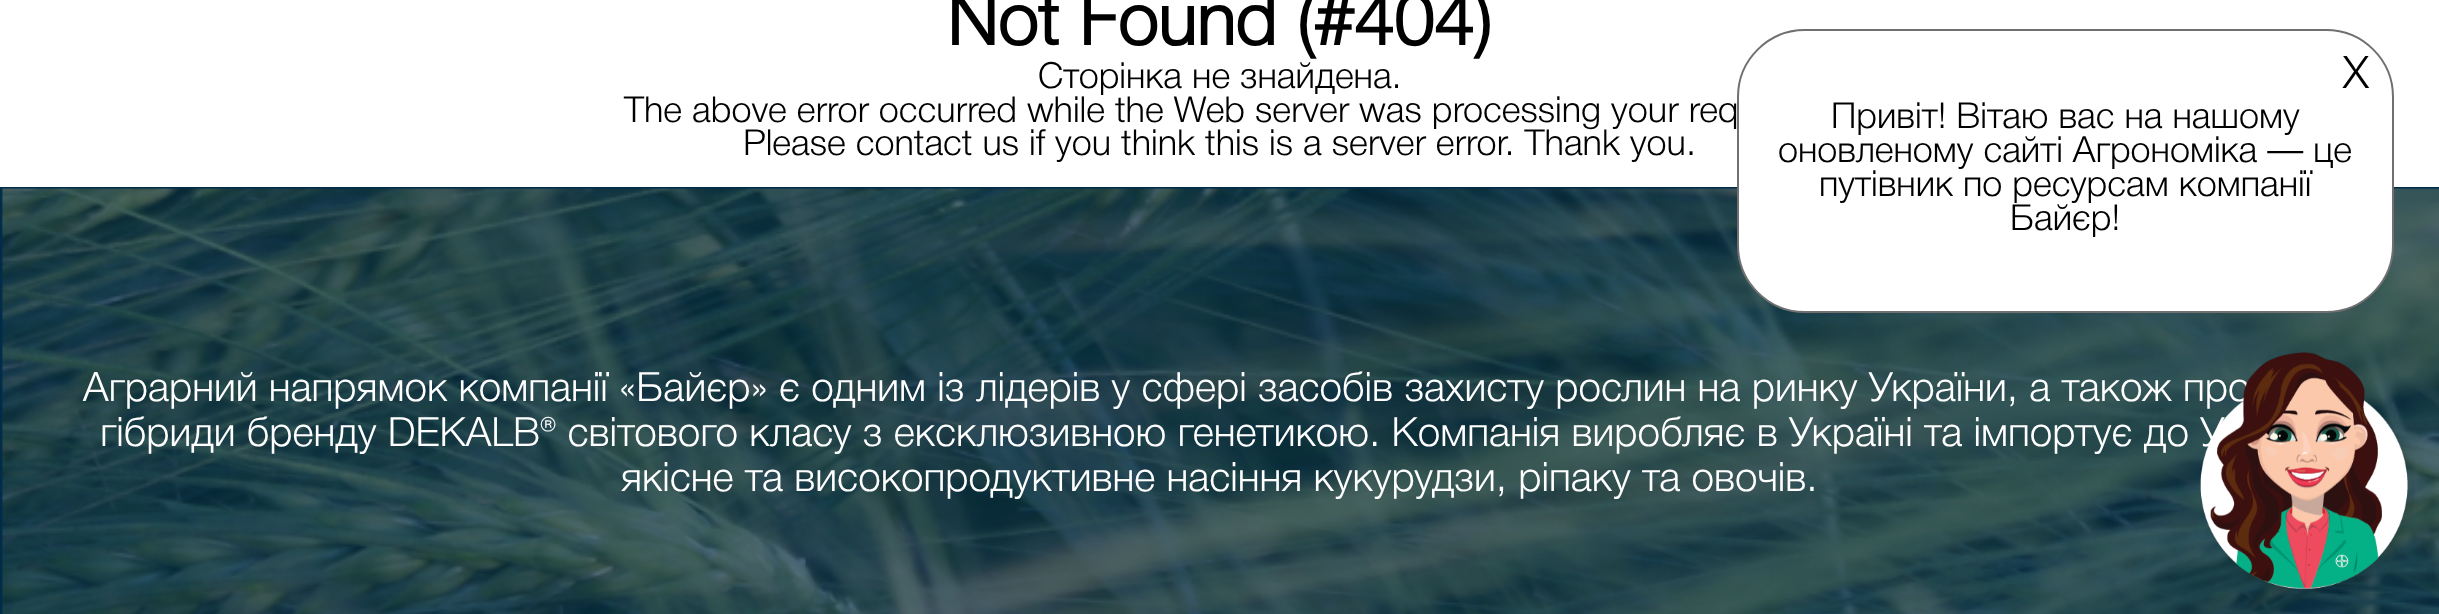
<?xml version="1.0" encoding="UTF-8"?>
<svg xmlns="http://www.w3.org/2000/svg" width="2439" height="614">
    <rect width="100%" height="100%" fill="#FFFFFF"/>
    <text x="947" y="45" font-family="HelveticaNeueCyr" font-size="72" font-weight="700" fill="#000000">Not Found (#404)</text>
    <text x="1038" y="88" font-family="HelveticaNeueCyr" font-size="36" font-weight="300" fill="#000000">Сторінка не знайдена.</text>
    <text x="624" y="122" font-family="HelveticaNeueCyr" font-size="36" font-weight="300" fill="#000000">The above error occurred while the Web server was processing your req</text>
    <text x="743" y="155" font-family="HelveticaNeueCyr" font-size="36" font-weight="300" fill="#000000">Please contact us if you think this is a server error. Thank you.</text>
    <rect x="0" y="187" width="2439" height="427" fill="#002C4A"/>
    <image x="1" y="188" width="2438" height="426" href="img_02.png"/>
    <rect x="1738" y="30" width="655" height="282" rx="67" fill="#FFFFFF" stroke="#707070" stroke-width="2"/>
    <text x="2343" y="88" font-family="HelveticaNeueCyr" font-size="45" font-weight="300" fill="#000000">X</text>
    <text x="1831" y="128" font-family="HelveticaNeueCyr" font-size="36" font-weight="300" fill="#000000">Привіт! Вітаю вас на нашому</text>
    <text x="1778" y="162" font-family="HelveticaNeueCyr" font-size="36" font-weight="300" fill="#000000">оновленому сайті Агрономіка — це</text>
    <text x="1819" y="196" font-family="HelveticaNeueCyr" font-size="36" font-weight="300" fill="#000000">путівник по ресурсам компанії</text>
    <text x="2010" y="230" font-family="HelveticaNeueCyr" font-size="36" font-weight="300" fill="#000000">Байєр!</text>
    <text x="83" y="401" font-family="HelveticaNeueCyr" font-size="40.5" font-weight="300" fill="#FFFFFF">Аграрний напрямок компанії «Байєр» є одним із лідерів у сфері засобів захисту рослин на ринку України, а також про</text>
    <text x="100" y="446" font-family="HelveticaNeueCyr" font-size="40.5" font-weight="300" fill="#FFFFFF">гібриди бренду DEKALB® світового класу з ексклюзивною генетикою. Компанія виробляє в Україні та імпортує до У</text>
    <image x="2200" y="352" width="215" height="243" href="img_01.png"/>
    <text x="621" y="491" font-family="HelveticaNeueCyr" font-size="40.5" font-weight="300" fill="#FFFFFF">якісне та високопродуктивне насіння кукурудзи, ріпаку та овочів.</text>
</svg>
